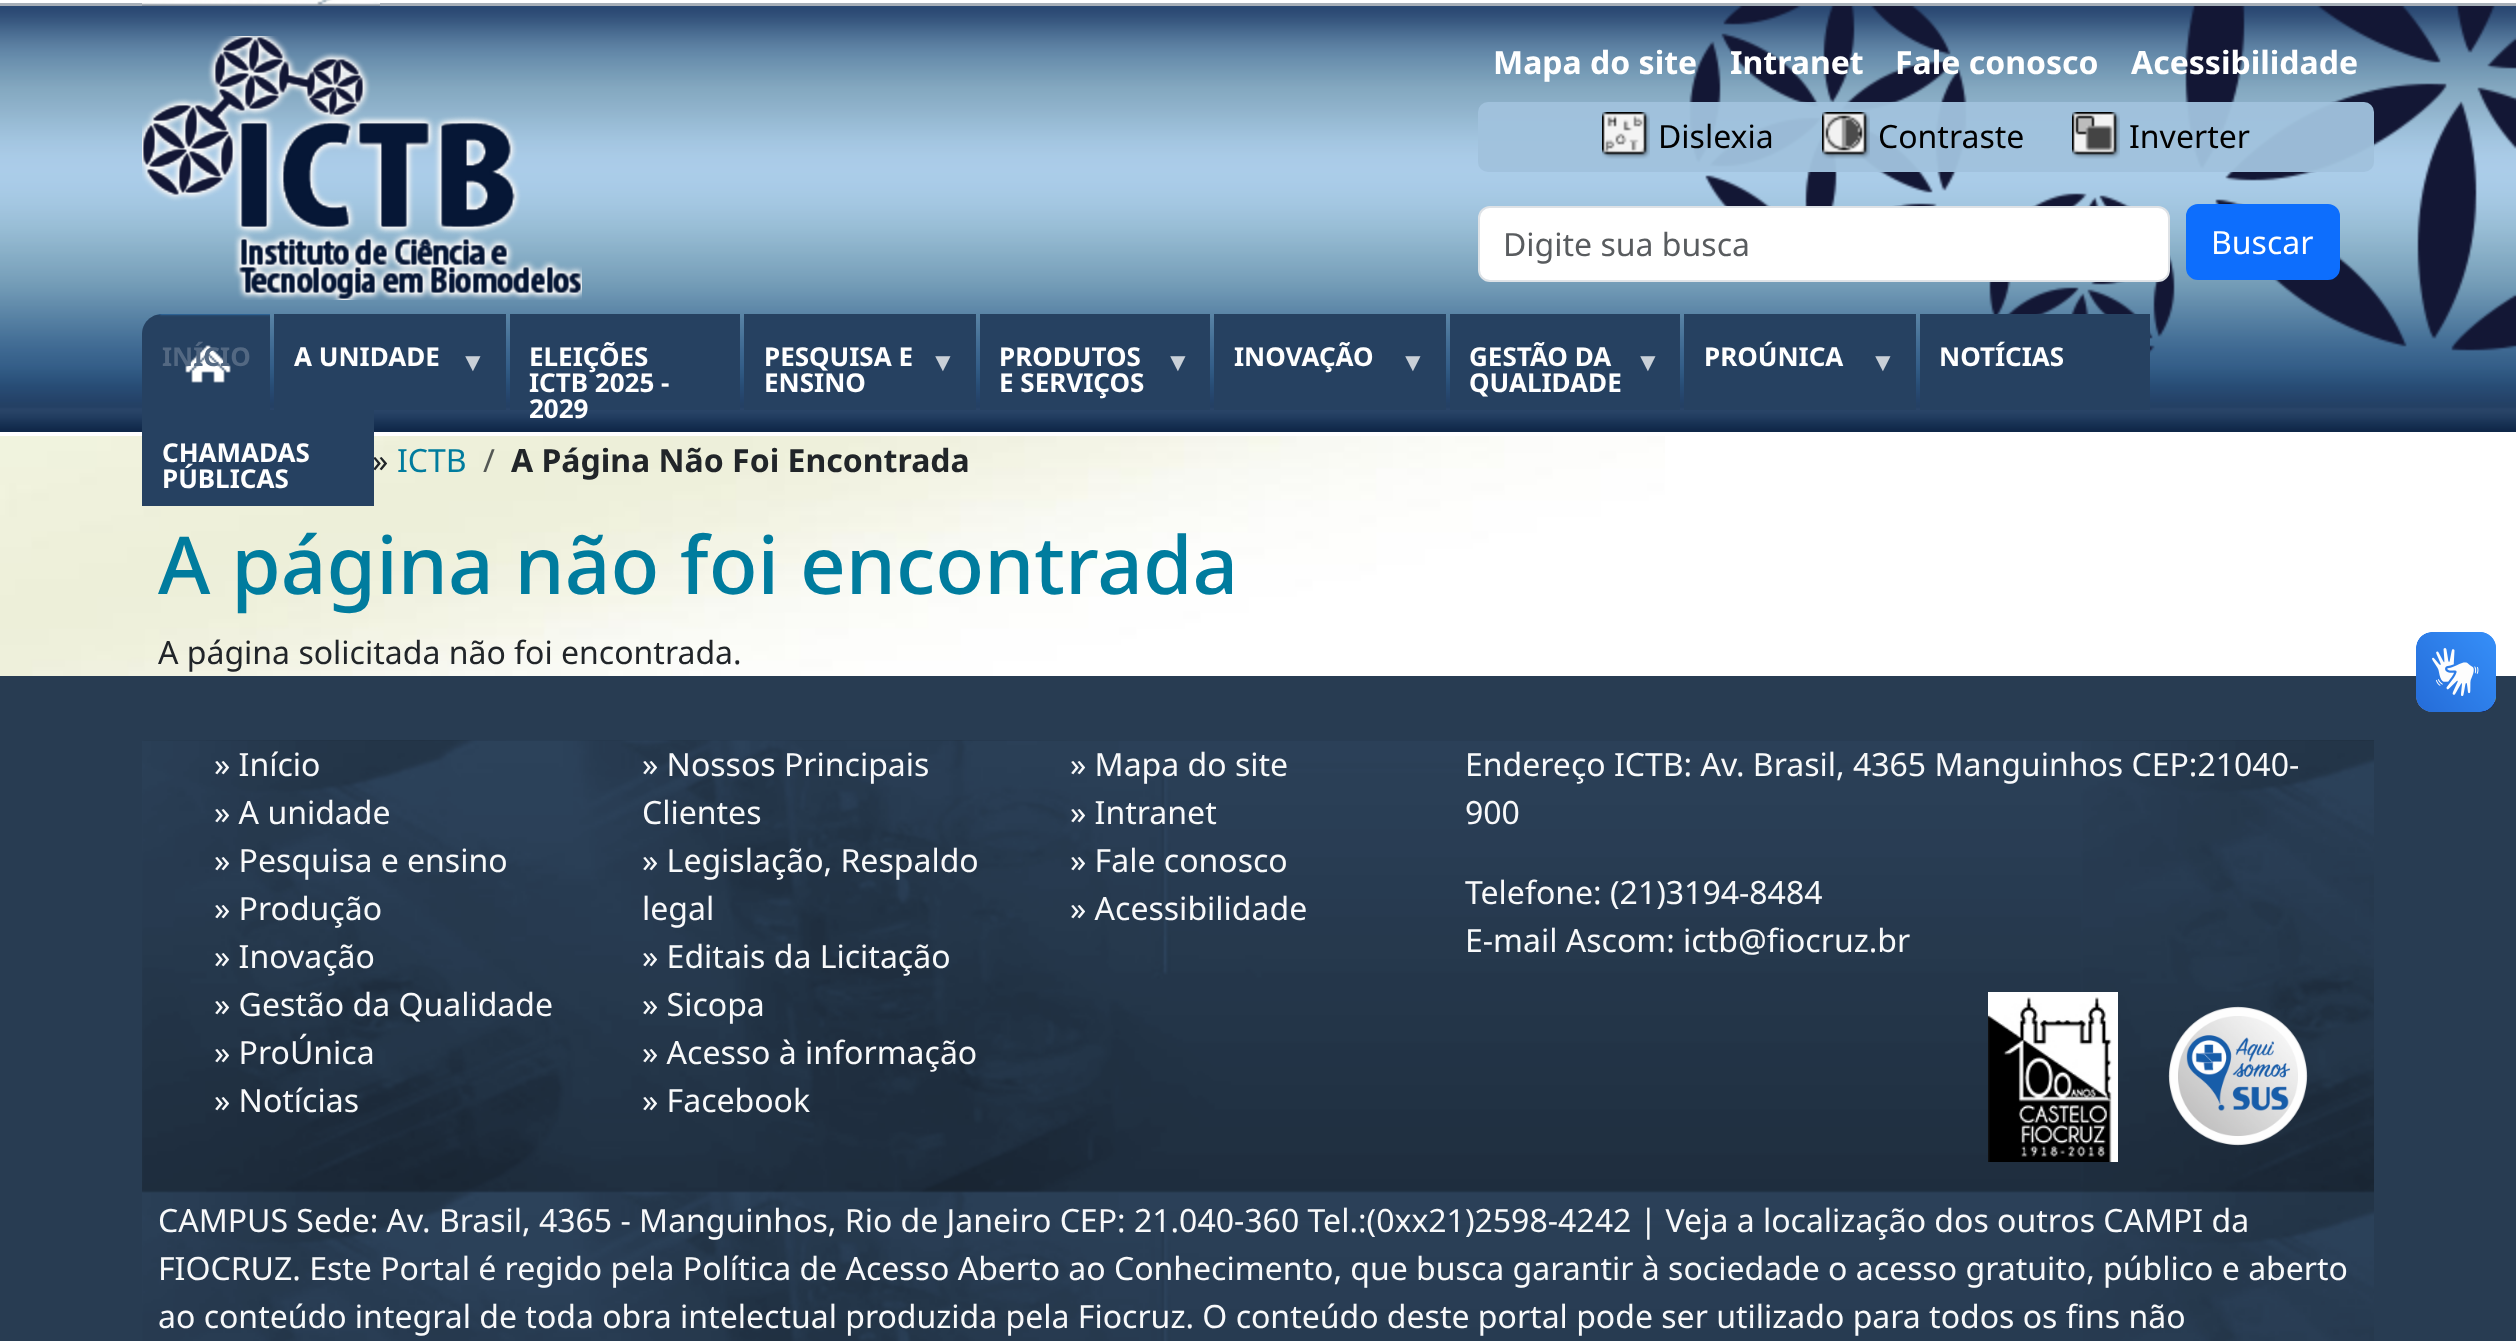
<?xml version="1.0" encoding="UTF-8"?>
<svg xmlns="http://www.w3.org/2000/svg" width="2516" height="1341">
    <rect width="100%" height="100%" fill="#FFFFFF"/>
    <rect x="0" y="3" width="2516" height="3" fill="#A7AFB7"/>
    <image x="142" y="0" width="238" height="6" href="img_01.png"/>
    <image x="0" y="6" width="2516" height="426" href="img_02.png"/>
    <image x="142" y="36" width="440" height="264" href="img_03.png"/>
    <image x="143" y="37" width="438" height="262" href="img_04.png"/>
    <text x="1493" y="74" font-family="Noto Sans" font-size="32" font-weight="700" fill="#FFFFFF">Mapa do site</text>
    <text x="1730" y="74" font-family="Noto Sans" font-size="32" font-weight="700" fill="#FFFFFF">Intranet</text>
    <text x="1895" y="74" font-family="Noto Sans" font-size="32" font-weight="700" fill="#FFFFFF">Fale conosco</text>
    <text x="2131" y="74" font-family="Noto Sans" font-size="32" font-weight="700" fill="#FFFFFF">Acessibilidade</text>
    <rect x="1478" y="102" width="896" height="70" rx="10" fill="#A0C2DD" fill-opacity="0.96"/>
    <image x="1602" y="112" width="48" height="47" href="img_05.png"/>
    <text x="1658" y="148" font-family="Noto Sans" font-size="32" fill="#000000">Dislexia</text>
    <image x="1822" y="112" width="48" height="47" href="img_06.png"/>
    <text x="1878" y="148" font-family="Noto Sans" font-size="32" fill="#000000">Contraste</text>
    <image x="2072" y="112" width="48" height="47" href="img_07.png"/>
    <text x="2129" y="148" font-family="Noto Sans" font-size="32" fill="#000000">Inverter</text>
    <rect x="1479" y="207" width="690" height="74" rx="11" fill="#FFFFFF" stroke="#DEE2E6" stroke-width="2"/>
    <text x="1503" y="256" font-family="Noto Sans" font-size="32" fill="#595C5F">Digite sua busca</text>
    <rect x="2187" y="205" width="152" height="74" rx="11" fill="#0D6EFD" stroke="#0D6EFD" stroke-width="2"/>
    <text x="2211" y="254" font-family="Noto Sans" font-size="32" fill="#FFFFFF">Buscar</text>
    <path d="M 162 314 H 270 V 410 H 142 V 334 C 142 323 151 314 162 314 Z" fill="#264161"/>
    <image x="157" y="314" width="113" height="69" href="img_08.png"/>
    <text x="162" y="366" font-family="Noto Sans" font-size="26" font-weight="700" fill="#536882">INÍCIO</text>
    <rect x="274" y="314" width="232" height="96" fill="#264161"/>
    <text x="294" y="366" font-family="Noto Sans" font-size="26" font-weight="700" fill="#FFFFFF">A UNIDADE</text>
    <text x="460" y="371" font-family="Liberation Sans" font-size="26" font-weight="700" fill="#C9D0D8">▼</text>
    <rect x="510" y="314" width="230" height="96" fill="#264161"/>
    <text font-family="Noto Sans" font-size="26" font-weight="700" fill="#FFFFFF">
        <tspan x="529" y="366">ELEIÇÕES</tspan>
        <tspan x="529" y="392">ICTB 2025 -</tspan>
        <tspan x="529" y="418">2029</tspan>
    </text>
    <rect x="744" y="314" width="232" height="96" fill="#264161"/>
    <text x="764" y="366" font-family="Noto Sans" font-size="26" font-weight="700" fill="#FFFFFF">PESQUISA E</text>
    <text x="930" y="371" font-family="Liberation Sans" font-size="26" font-weight="700" fill="#C9D0D8">▼</text>
    <text x="764" y="392" font-family="Noto Sans" font-size="26" font-weight="700" fill="#FFFFFF">ENSINO</text>
    <rect x="980" y="314" width="230" height="96" fill="#264161"/>
    <text x="999" y="366" font-family="Noto Sans" font-size="26" font-weight="700" fill="#FFFFFF">PRODUTOS</text>
    <text x="1165" y="371" font-family="Liberation Sans" font-size="26" font-weight="700" fill="#C9D0D8">▼</text>
    <text x="999" y="392" font-family="Noto Sans" font-size="26" font-weight="700" fill="#FFFFFF">E SERVIÇOS</text>
    <rect x="1214" y="314" width="232" height="96" fill="#264161"/>
    <text x="1234" y="366" font-family="Noto Sans" font-size="26" font-weight="700" fill="#FFFFFF">INOVAÇÃO</text>
    <text x="1400" y="371" font-family="Liberation Sans" font-size="26" font-weight="700" fill="#C9D0D8">▼</text>
    <rect x="1450" y="314" width="230" height="96" fill="#264161"/>
    <text x="1469" y="366" font-family="Noto Sans" font-size="26" font-weight="700" fill="#FFFFFF">GESTÃO DA</text>
    <text x="1635" y="371" font-family="Liberation Sans" font-size="26" font-weight="700" fill="#C9D0D8">▼</text>
    <text x="1469" y="392" font-family="Noto Sans" font-size="26" font-weight="700" fill="#FFFFFF">QUALIDADE</text>
    <rect x="1684" y="314" width="232" height="96" fill="#264161"/>
    <text x="1704" y="366" font-family="Noto Sans" font-size="26" font-weight="700" fill="#FFFFFF">PROÚNICA</text>
    <text x="1870" y="371" font-family="Liberation Sans" font-size="26" font-weight="700" fill="#C9D0D8">▼</text>
    <rect x="1920" y="314" width="230" height="96" fill="#264161"/>
    <text x="1939" y="366" font-family="Noto Sans" font-size="26" font-weight="700" fill="#FFFFFF">NOTÍCIAS</text>
    <image x="0" y="436" width="1665" height="240" href="img_09.png"/>
    <text x="372" y="472" font-family="Noto Sans" font-size="32" fill="#212529">»</text>
    <rect x="142" y="410" width="232" height="96" fill="#264161"/>
    <text font-family="Noto Sans" font-size="26" font-weight="700" fill="#FFFFFF">
        <tspan x="162" y="462">CHAMADAS</tspan>
        <tspan x="162" y="488">PÚBLICAS</tspan>
    </text>
    <text x="397" y="472" font-family="Noto Sans" font-size="32" fill="#007C9E">ICTB</text>
    <text x="483" y="472" font-family="Noto Sans" font-size="32" fill="#545855">/</text>
    <text x="511" y="472" font-family="Noto Sans" font-size="32" font-weight="700" fill="#212529">A Página Não Foi Encontrada</text>
    <text x="158" y="594" font-family="Noto Sans" font-size="80" font-weight="500" fill="#007C9E">A página não foi encontrada</text>
    <text x="158" y="664" font-family="Noto Sans" font-size="32" fill="#212529">A página solicitada não foi encontrada.</text>
    <rect x="0" y="676" width="2516" height="665" fill="#283C52"/>
    <image x="142" y="740" width="2232" height="601" href="img_10.png"/>
    <text font-family="Noto Sans" font-size="32" fill="#F8F9FA">
        <tspan x="214" y="776">» Início</tspan>
        <tspan x="214" y="824">» A unidade</tspan>
        <tspan x="214" y="872">» Pesquisa e ensino</tspan>
        <tspan x="214" y="920">» Produção</tspan>
        <tspan x="214" y="968">» Inovação</tspan>
        <tspan x="214" y="1016">» Gestão da Qualidade</tspan>
        <tspan x="214" y="1064">» ProÚnica</tspan>
        <tspan x="214" y="1112">» Notícias</tspan>
    </text>
    <text font-family="Noto Sans" font-size="32" fill="#F8F9FA">
        <tspan x="642" y="776">» Nossos Principais</tspan>
        <tspan x="642" y="824">Clientes</tspan>
        <tspan x="642" y="872">» Legislação, Respaldo</tspan>
        <tspan x="642" y="920">legal</tspan>
        <tspan x="642" y="968">» Editais da Licitação</tspan>
        <tspan x="642" y="1016">» Sicopa</tspan>
        <tspan x="642" y="1064">» Acesso à informação</tspan>
        <tspan x="642" y="1112">» Facebook</tspan>
    </text>
    <text font-family="Noto Sans" font-size="32" fill="#F8F9FA">
        <tspan x="1070" y="776">» Mapa do site</tspan>
        <tspan x="1070" y="824">» Intranet</tspan>
        <tspan x="1070" y="872">» Fale conosco</tspan>
        <tspan x="1070" y="920">» Acessibilidade</tspan>
    </text>
    <text font-family="Noto Sans" font-size="32" fill="#F8F9FA">
        <tspan x="1465" y="776">Endereço ICTB: Av. Brasil, 4365 Manguinhos CEP:21040-</tspan>
        <tspan x="1465" y="824">900</tspan>
    </text>
    <text font-family="Noto Sans" font-size="32" fill="#F8F9FA">
        <tspan x="1465" y="904">Telefone: (21)3194-8484</tspan>
        <tspan x="1465" y="952">E-mail Ascom: ictb@fiocruz.br</tspan>
    </text>
    <image x="1988" y="992" width="130" height="170" href="img_11.png"/>
    <image x="2168" y="1006" width="140" height="140" href="img_12.png"/>
    <text font-family="Noto Sans" font-size="32" fill="#F8F9FA">
        <tspan x="158" y="1232">CAMPUS Sede: Av. Brasil, 4365 - Manguinhos, Rio de Janeiro CEP: 21.040-360 Tel.:(0xx21)2598-4242 | Veja a localização dos outros CAMPI da</tspan>
        <tspan x="158" y="1280">FIOCRUZ. Este Portal é regido pela Política de Acesso Aberto ao Conhecimento, que busca garantir à sociedade o acesso gratuito, público e aberto</tspan>
        <tspan x="158" y="1328">ao conteúdo integral de toda obra intelectual produzida pela Fiocruz. O conteúdo deste portal pode ser utilizado para todos os fins não</tspan>
    </text>
    <image x="2416" y="632" width="80" height="80" href="img_13.png"/>
    <image x="2416" y="632" width="80" height="80" href="img_14.png"/>
</svg>
